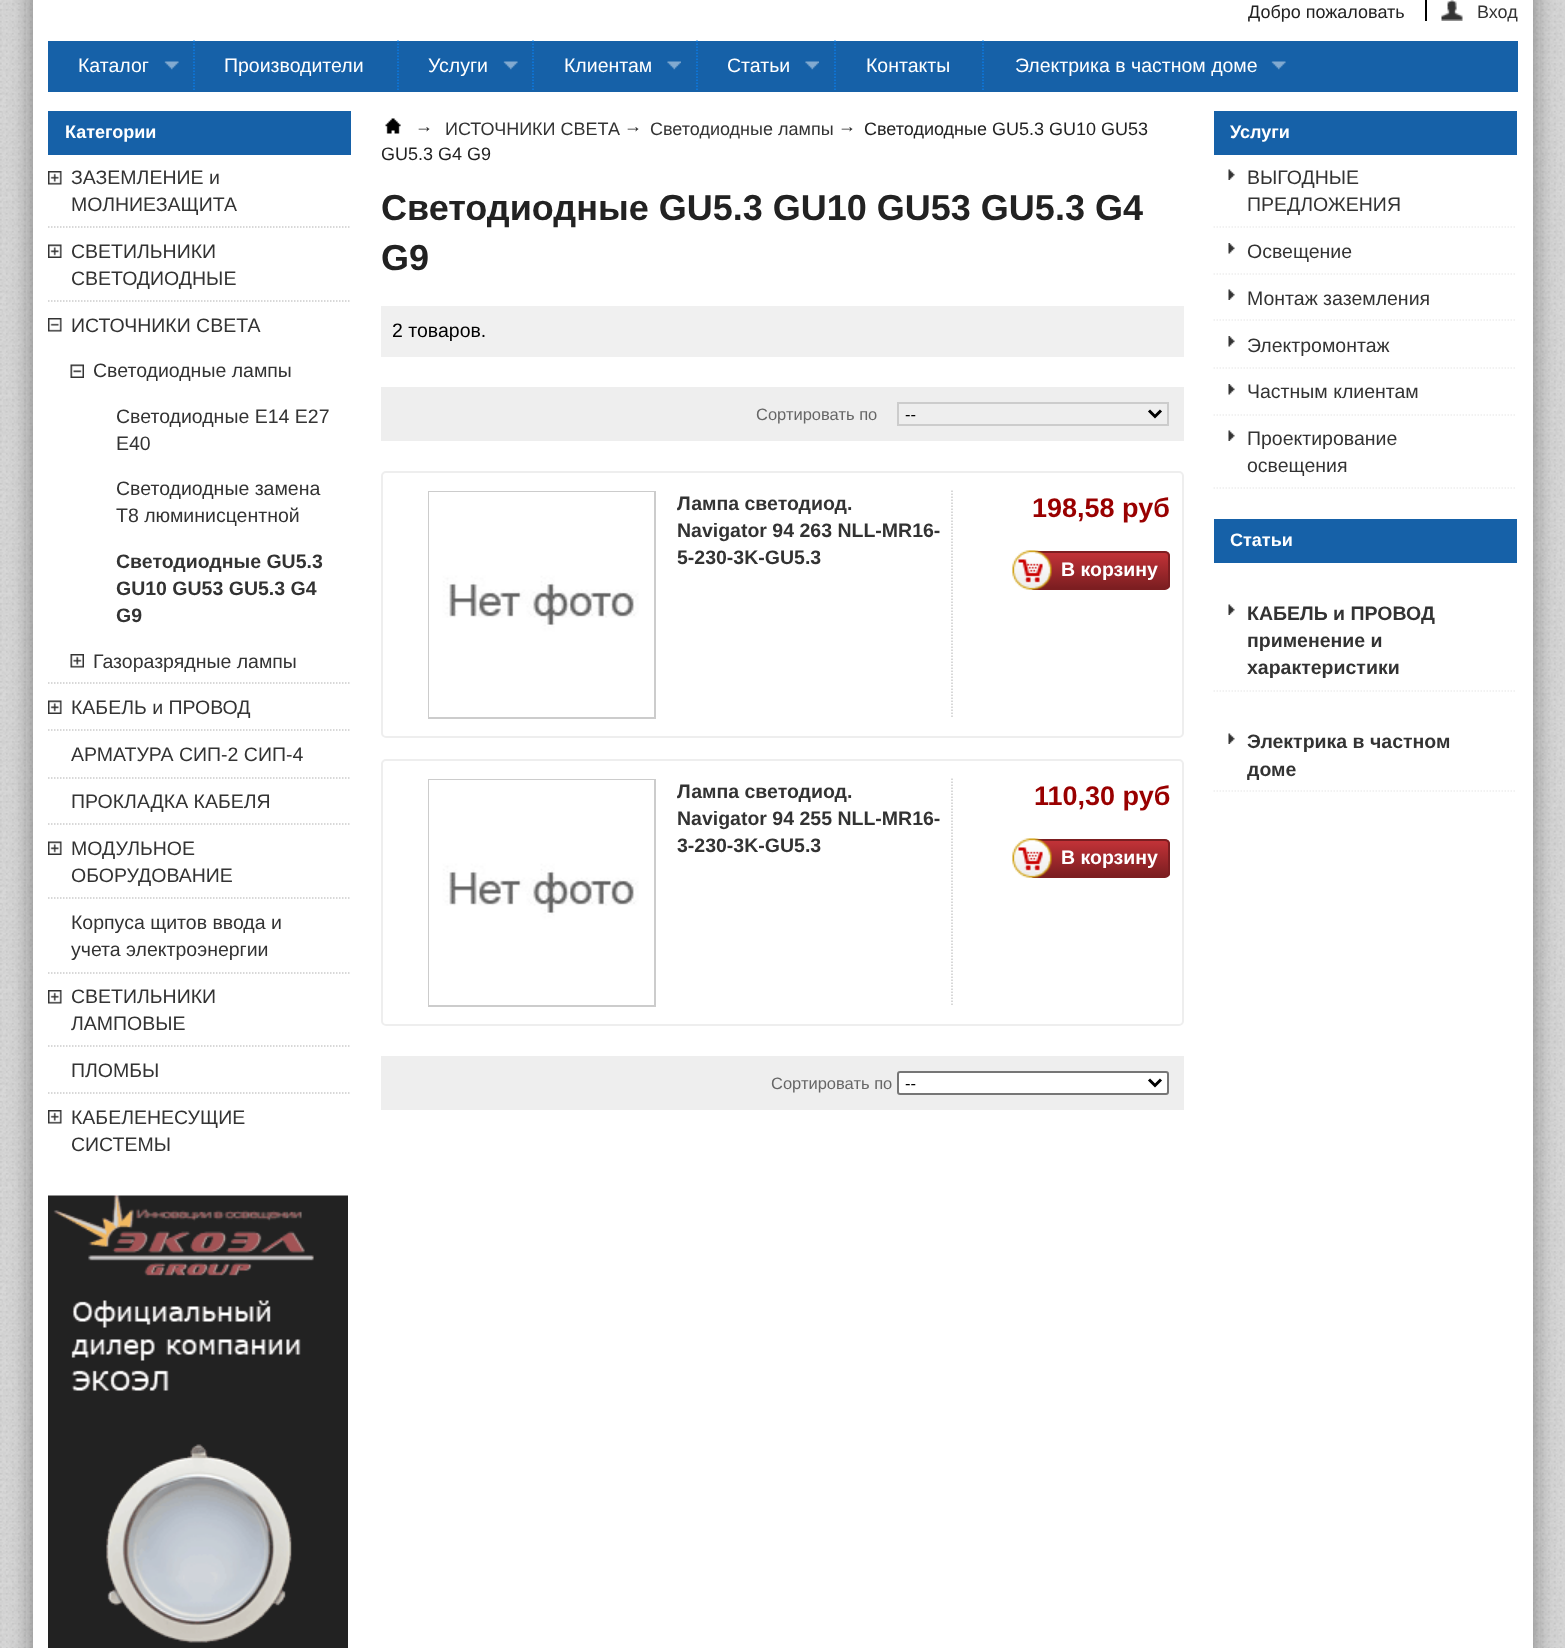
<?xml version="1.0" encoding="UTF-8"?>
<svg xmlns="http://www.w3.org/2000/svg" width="1565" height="1648">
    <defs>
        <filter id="blur1" x="-50%" y="-200%" width="200%" height="500%"><feGaussianBlur stdDeviation="11"/></filter>
        <clipPath id="clip1"><rect x="1029" y="551" width="141" height="39" rx="5"/></clipPath>
        <linearGradient id="g1" gradientUnits="userSpaceOnUse" x1="1100" y1="552" x2="1100" y2="588"><stop offset="0" stop-color="#C43338"/><stop offset="1" stop-color="#7C1E21"/></linearGradient>
        <clipPath id="clip2"><rect x="1029" y="839" width="141" height="39" rx="5"/></clipPath>
        <linearGradient id="g2" gradientUnits="userSpaceOnUse" x1="1100" y1="840" x2="1100" y2="876"><stop offset="0" stop-color="#C43338"/><stop offset="1" stop-color="#7C1E21"/></linearGradient>
    </defs>
    <rect width="100%" height="100%" fill="#FFFFFF"/>
    <image x="0" y="0" width="1565" height="1648" href="img_01.png"/>
    <rect x="33" y="-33" width="1500" height="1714" fill="#1E1E1E" fill-opacity="0.5" filter="url(#blur1)"/>
    <rect x="33" y="0" width="1500" height="1648" fill="#FFFFFF"/>
    <text x="1248" y="18" font-family="Liberation Sans" font-size="18" fill="#222222">Добро пожаловать</text>
    <image x="1441" y="0" width="22" height="21" href="img_02.png"/>
    <rect x="1425" y="0" width="2" height="21" fill="#000000"/>
    <text x="1477" y="18" font-family="Liberation Sans" font-size="18" fill="#333333">Вход</text>
    <rect x="48" y="41" width="1470" height="51" fill="#1661A8"/>
    <text x="78" y="72" font-family="Liberation Sans" font-size="19.5" fill="#FFFFFF">Каталог</text>
    <image x="164" y="61" width="15" height="9" href="img_03.png"/>
    <path d="M 194 40.5 V 91.5" fill="none" stroke="#0C7BE3" stroke-width="1.5" stroke-dasharray="1.5 1.5"/>
    <text x="224" y="72" font-family="Liberation Sans" font-size="19.5" fill="#FFFFFF">Производители</text>
    <path d="M 398 40.5 V 91.5" fill="none" stroke="#0C7BE3" stroke-width="1.5" stroke-dasharray="1.5 1.5"/>
    <text x="428" y="72" font-family="Liberation Sans" font-size="19.5" fill="#FFFFFF">Услуги</text>
    <image x="503" y="61" width="15" height="9" href="img_03.png"/>
    <path d="M 533 40.5 V 91.5" fill="none" stroke="#0C7BE3" stroke-width="1.5" stroke-dasharray="1.5 1.5"/>
    <text x="564" y="72" font-family="Liberation Sans" font-size="19.5" fill="#FFFFFF">Клиентам</text>
    <image x="667" y="61" width="14" height="9" href="img_04.png"/>
    <path d="M 697 40.5 V 91.5" fill="none" stroke="#0C7BE3" stroke-width="1.5" stroke-dasharray="1.5 1.5"/>
    <text x="727" y="72" font-family="Liberation Sans" font-size="19.5" fill="#FFFFFF">Статьи</text>
    <image x="805" y="61" width="14" height="9" href="img_04.png"/>
    <path d="M 835 40.5 V 91.5" fill="none" stroke="#0C7BE3" stroke-width="1.5" stroke-dasharray="1.5 1.5"/>
    <text x="866" y="72" font-family="Liberation Sans" font-size="19.5" fill="#FFFFFF">Контакты</text>
    <path d="M 983 40.5 V 91.5" fill="none" stroke="#0C7BE3" stroke-width="1.5" stroke-dasharray="1.5 1.5"/>
    <text x="1015" y="72" font-family="Liberation Sans" font-size="19.5" fill="#FFFFFF">Электрика в частном доме</text>
    <image x="1271" y="61" width="15" height="9" href="img_03.png"/>
    <rect x="48" y="111" width="303" height="44" fill="#1661A8"/>
    <text x="65" y="138" font-family="Liberation Sans" font-size="18" font-weight="700" fill="#FFFFFF">Категории</text>
    <path d="M 48 227 H 351" fill="none" stroke="#CCCCCC" stroke-width="1.5" stroke-dasharray="1.5 1.5"/>
    <image x="48" y="171" width="14" height="14" href="img_05.png"/>
    <text font-family="Liberation Sans" font-size="19.5" fill="#333333">
        <tspan x="71" y="184">ЗАЗЕМЛЕНИЕ и</tspan>
        <tspan x="71" y="211">МОЛНИЕЗАЩИТА</tspan>
    </text>
    <path d="M 48 301 H 351" fill="none" stroke="#CCCCCC" stroke-width="1.5" stroke-dasharray="1.5 1.5"/>
    <image x="48" y="244" width="14" height="14" href="img_06.png"/>
    <text font-family="Liberation Sans" font-size="19.5" fill="#333333">
        <tspan x="71" y="258">СВЕТИЛЬНИКИ</tspan>
        <tspan x="71" y="285">СВЕТОДИОДНЫЕ</tspan>
    </text>
    <path d="M 48 683 H 351" fill="none" stroke="#CCCCCC" stroke-width="1.5" stroke-dasharray="1.5 1.5"/>
    <image x="48" y="318" width="14" height="14" href="img_07.png"/>
    <text x="71" y="332" font-family="Liberation Sans" font-size="19.5" fill="#333333">ИСТОЧНИКИ СВЕТА</text>
    <image x="70" y="364" width="14" height="14" href="img_08.png"/>
    <text x="93" y="377" font-family="Liberation Sans" font-size="19.5" fill="#333333">Светодиодные лампы</text>
    <text font-family="Liberation Sans" font-size="19.5" fill="#333333">
        <tspan x="116" y="423">Светодиодные Е14 Е27</tspan>
        <tspan x="116" y="450">E40</tspan>
    </text>
    <text font-family="Liberation Sans" font-size="19.5" fill="#333333">
        <tspan x="116" y="495">Светодиодные замена</tspan>
        <tspan x="116" y="522">Т8 люминисцентной</tspan>
    </text>
    <text font-family="Liberation Sans" font-size="19.5" font-weight="700" fill="#333333">
        <tspan x="116" y="568">Светодиодные GU5.3</tspan>
        <tspan x="116" y="595">GU10 GU53 GU5.3 G4</tspan>
        <tspan x="116" y="622">G9</tspan>
    </text>
    <image x="70" y="654" width="14" height="14" href="img_09.png"/>
    <text x="93" y="668" font-family="Liberation Sans" font-size="19.5" fill="#333333">Газоразрядные лампы</text>
    <path d="M 48 730 H 351" fill="none" stroke="#CCCCCC" stroke-width="1.5" stroke-dasharray="1.5 1.5"/>
    <image x="48" y="700" width="14" height="14" href="img_06.png"/>
    <text x="71" y="714" font-family="Liberation Sans" font-size="19.5" fill="#333333">КАБЕЛЬ и ПРОВОД</text>
    <path d="M 48 778 H 351" fill="none" stroke="#CCCCCC" stroke-width="1.5" stroke-dasharray="1.5 1.5"/>
    <text x="71" y="761" font-family="Liberation Sans" font-size="19.5" fill="#333333">АРМАТУРА СИП-2 СИП-4</text>
    <path d="M 48 824 H 351" fill="none" stroke="#CCCCCC" stroke-width="1.5" stroke-dasharray="1.5 1.5"/>
    <text x="71" y="808" font-family="Liberation Sans" font-size="19.5" fill="#333333">ПРОКЛАДКА КАБЕЛЯ</text>
    <path d="M 48 898 H 351" fill="none" stroke="#CCCCCC" stroke-width="1.5" stroke-dasharray="1.5 1.5"/>
    <image x="48" y="841" width="14" height="14" href="img_06.png"/>
    <text font-family="Liberation Sans" font-size="19.5" fill="#333333">
        <tspan x="71" y="855">МОДУЛЬНОЕ</tspan>
        <tspan x="71" y="882">ОБОРУДОВАНИЕ</tspan>
    </text>
    <path d="M 48 973 H 351" fill="none" stroke="#CCCCCC" stroke-width="1.5" stroke-dasharray="1.5 1.5"/>
    <text font-family="Liberation Sans" font-size="19.5" fill="#333333">
        <tspan x="71" y="929">Корпуса щитов ввода и</tspan>
        <tspan x="71" y="956">учета электроэнергии</tspan>
    </text>
    <path d="M 48 1046 H 351" fill="none" stroke="#CCCCCC" stroke-width="1.5" stroke-dasharray="1.5 1.5"/>
    <image x="48" y="990" width="14" height="14" href="img_05.png"/>
    <text font-family="Liberation Sans" font-size="19.5" fill="#333333">
        <tspan x="71" y="1003">СВЕТИЛЬНИКИ</tspan>
        <tspan x="71" y="1030">ЛАМПОВЫЕ</tspan>
    </text>
    <path d="M 48 1093 H 351" fill="none" stroke="#CCCCCC" stroke-width="1.5" stroke-dasharray="1.5 1.5"/>
    <text x="71" y="1077" font-family="Liberation Sans" font-size="19.5" fill="#333333">ПЛОМБЫ</text>
    <image x="48" y="1110" width="14" height="14" href="img_05.png"/>
    <text font-family="Liberation Sans" font-size="19.5" fill="#333333">
        <tspan x="71" y="1124">КАБЕЛЕНЕСУЩИЕ</tspan>
        <tspan x="71" y="1151">СИСТЕМЫ</tspan>
    </text>
    <image x="48" y="1195" width="300" height="453" href="img_10.png"/>
    <image x="385" y="118" width="16" height="16" href="img_11.png"/>
    <text x="415" y="132" font-family="Liberation Sans" font-size="18" fill="#222222">→</text>
    <text x="445" y="135" font-family="Liberation Sans" font-size="18" fill="#333333">ИСТОЧНИКИ СВЕТА</text>
    <text x="624" y="132" font-family="Liberation Sans" font-size="18" fill="#222222">→</text>
    <text x="650" y="135" font-family="Liberation Sans" font-size="18" fill="#333333">Светодиодные лампы</text>
    <text x="838" y="132" font-family="Liberation Sans" font-size="18" fill="#222222">→</text>
    <text x="864" y="135" font-family="Liberation Sans" font-size="18" fill="#222222">Светодиодные GU5.3 GU10 GU53</text>
    <text x="381" y="160" font-family="Liberation Sans" font-size="18" fill="#222222">GU5.3 G4 G9</text>
    <text font-family="Liberation Sans" font-size="36" font-weight="700" fill="#222222">
        <tspan x="381" y="220">Светодиодные GU5.3 GU10 GU53 GU5.3 G4</tspan>
        <tspan x="381" y="270">G9</tspan>
    </text>
    <rect x="381" y="306" width="803" height="51" fill="#F0F0F0"/>
    <text x="392" y="337" font-family="Liberation Sans" font-size="19.5" fill="#000000">2 товаров.</text>
    <rect x="381" y="387" width="803" height="54" fill="#EEEEEE"/>
    <text x="756" y="420" font-family="Liberation Sans" font-size="16.5" fill="#666666">Сортировать по</text>
    <rect x="898" y="403" width="270" height="22" fill="none" stroke="#CCCCCC" stroke-width="2"/>
    <path d="M 1149 410.5 L 1155 416.5 L 1161 410.5" fill="none" stroke="#000000" stroke-width="3"/>
    <text x="905" y="420" font-family="Liberation Sans" font-size="16.5" fill="#000000">--</text>
    <rect x="382" y="472" width="801" height="265" rx="4" fill="none" stroke="#EEEEEE" stroke-width="2"/>
    <path d="M 952 490.5 V 718.5" fill="none" stroke="#CCCCCC" stroke-width="1.5" stroke-dasharray="1.5 1.5"/>
    <rect x="429" y="492" width="226" height="226" fill="none" stroke="#CCCCCC" stroke-width="2"/>
    <image x="429" y="492" width="225" height="225" href="img_12.png"/>
    <text font-family="Liberation Sans" font-size="19.5" font-weight="700" fill="#333333">
        <tspan x="677" y="510">Лампа светодиод.</tspan>
        <tspan x="677" y="537">Navigator 94 263 NLL-MR16-</tspan>
        <tspan x="677" y="564">5-230-3K-GU5.3</tspan>
    </text>
    <text x="1032" y="517" font-family="Liberation Sans" font-size="27" font-weight="700" fill="#990000">198,58 руб</text>
    <g clip-path="url(#clip1)">
        <rect x="1029" y="552" width="141" height="36" fill="url(#g1)"/>
    </g>
    <rect x="1030" y="552" width="139" height="37" rx="4" fill="none" stroke="#7C1E21" stroke-width="2"/>
    <image x="1012" y="550" width="40" height="40" href="img_13.png"/>
    <text x="1061" y="576" font-family="Liberation Sans" font-size="19.5" font-weight="700" fill="#FFFFFF">В корзину</text>
    <rect x="382" y="760" width="801" height="265" rx="4" fill="none" stroke="#EEEEEE" stroke-width="2"/>
    <path d="M 952 778.5 V 1006.5" fill="none" stroke="#CCCCCC" stroke-width="1.5" stroke-dasharray="1.5 1.5"/>
    <rect x="429" y="780" width="226" height="226" fill="none" stroke="#CCCCCC" stroke-width="2"/>
    <image x="429" y="780" width="225" height="225" href="img_12.png"/>
    <text font-family="Liberation Sans" font-size="19.5" font-weight="700" fill="#333333">
        <tspan x="677" y="798">Лампа светодиод.</tspan>
        <tspan x="677" y="825">Navigator 94 255 NLL-MR16-</tspan>
        <tspan x="677" y="852">3-230-3K-GU5.3</tspan>
    </text>
    <text x="1034" y="805" font-family="Liberation Sans" font-size="27" font-weight="700" fill="#990000">110,30 руб</text>
    <g clip-path="url(#clip2)">
        <rect x="1029" y="840" width="141" height="36" fill="url(#g2)"/>
    </g>
    <rect x="1030" y="840" width="139" height="37" rx="4" fill="none" stroke="#7C1E21" stroke-width="2"/>
    <image x="1012" y="838" width="40" height="40" href="img_13.png"/>
    <text x="1061" y="864" font-family="Liberation Sans" font-size="19.5" font-weight="700" fill="#FFFFFF">В корзину</text>
    <rect x="381" y="1056" width="803" height="54" fill="#EEEEEE"/>
    <text x="771" y="1089" font-family="Liberation Sans" font-size="16.5" fill="#666666">Сортировать по</text>
    <rect x="898" y="1072" width="270" height="22" rx="2" fill="#FFFFFF" stroke="#767676" stroke-width="2"/>
    <path d="M 1149 1079.5 L 1155 1085.5 L 1161 1079.5" fill="none" stroke="#000000" stroke-width="3"/>
    <text x="905" y="1089" font-family="Liberation Sans" font-size="16.5" fill="#000000">--</text>
    <rect x="1214" y="111" width="303" height="44" fill="#1661A8"/>
    <text x="1230" y="138" font-family="Liberation Sans" font-size="18" font-weight="700" fill="#FFFFFF">Услуги</text>
    <path d="M 1213.5 227 H 1516.5" fill="none" stroke="#EEEEEE" stroke-width="1.5" stroke-dasharray="1.5 1.5"/>
    <image x="1228" y="169" width="7" height="11" href="img_14.png"/>
    <text font-family="Liberation Sans" font-size="19.5" fill="#333333">
        <tspan x="1247" y="184">ВЫГОДНЫЕ</tspan>
        <tspan x="1247" y="211">ПРЕДЛОЖЕНИЯ</tspan>
    </text>
    <path d="M 1213.5 274 H 1516.5" fill="none" stroke="#EEEEEE" stroke-width="1.5" stroke-dasharray="1.5 1.5"/>
    <image x="1228" y="243" width="7" height="11" href="img_15.png"/>
    <text x="1247" y="258" font-family="Liberation Sans" font-size="19.5" fill="#333333">Освещение</text>
    <path d="M 1213.5 320 H 1516.5" fill="none" stroke="#EEEEEE" stroke-width="1.5" stroke-dasharray="1.5 1.5"/>
    <image x="1228" y="289" width="7" height="11" href="img_14.png"/>
    <text x="1247" y="305" font-family="Liberation Sans" font-size="19.5" fill="#333333">Монтаж заземления</text>
    <path d="M 1213.5 368 H 1516.5" fill="none" stroke="#EEEEEE" stroke-width="1.5" stroke-dasharray="1.5 1.5"/>
    <image x="1228" y="336" width="7" height="11" href="img_15.png"/>
    <text x="1247" y="352" font-family="Liberation Sans" font-size="19.5" fill="#333333">Электромонтаж</text>
    <path d="M 1213.5 415 H 1516.5" fill="none" stroke="#EEEEEE" stroke-width="1.5" stroke-dasharray="1.5 1.5"/>
    <image x="1228" y="384" width="7" height="11" href="img_15.png"/>
    <text x="1247" y="398" font-family="Liberation Sans" font-size="19.5" fill="#333333">Частным клиентам</text>
    <path d="M 1213.5 488 H 1516.5" fill="none" stroke="#EEEEEE" stroke-width="1.5" stroke-dasharray="1.5 1.5"/>
    <image x="1228" y="430" width="7" height="11" href="img_14.png"/>
    <text font-family="Liberation Sans" font-size="19.5" fill="#333333">
        <tspan x="1247" y="445">Проектирование</tspan>
        <tspan x="1247" y="472">освещения</tspan>
    </text>
    <rect x="1214" y="519" width="303" height="44" fill="#1661A8"/>
    <text x="1230" y="546" font-family="Liberation Sans" font-size="18" font-weight="700" fill="#FFFFFF">Статьи</text>
    <path d="M 1213.5 691 H 1516.5" fill="none" stroke="#EEEEEE" stroke-width="1.5" stroke-dasharray="1.5 1.5"/>
    <image x="1228" y="604" width="7" height="11" href="img_14.png"/>
    <text font-family="Liberation Sans" font-size="19.5" font-weight="700" fill="#333333">
        <tspan x="1247" y="620">КАБЕЛЬ и ПРОВОД</tspan>
        <tspan x="1247" y="647">применение и</tspan>
        <tspan x="1247" y="674">характеристики</tspan>
    </text>
    <path d="M 1213.5 791 H 1516.5" fill="none" stroke="#EEEEEE" stroke-width="1.5" stroke-dasharray="1.5 1.5"/>
    <image x="1228" y="733" width="7" height="11" href="img_14.png"/>
    <text font-family="Liberation Sans" font-size="19.5" font-weight="700" fill="#333333">
        <tspan x="1247" y="748">Электрика в частном</tspan>
        <tspan x="1247" y="776">доме</tspan>
    </text>
</svg>
